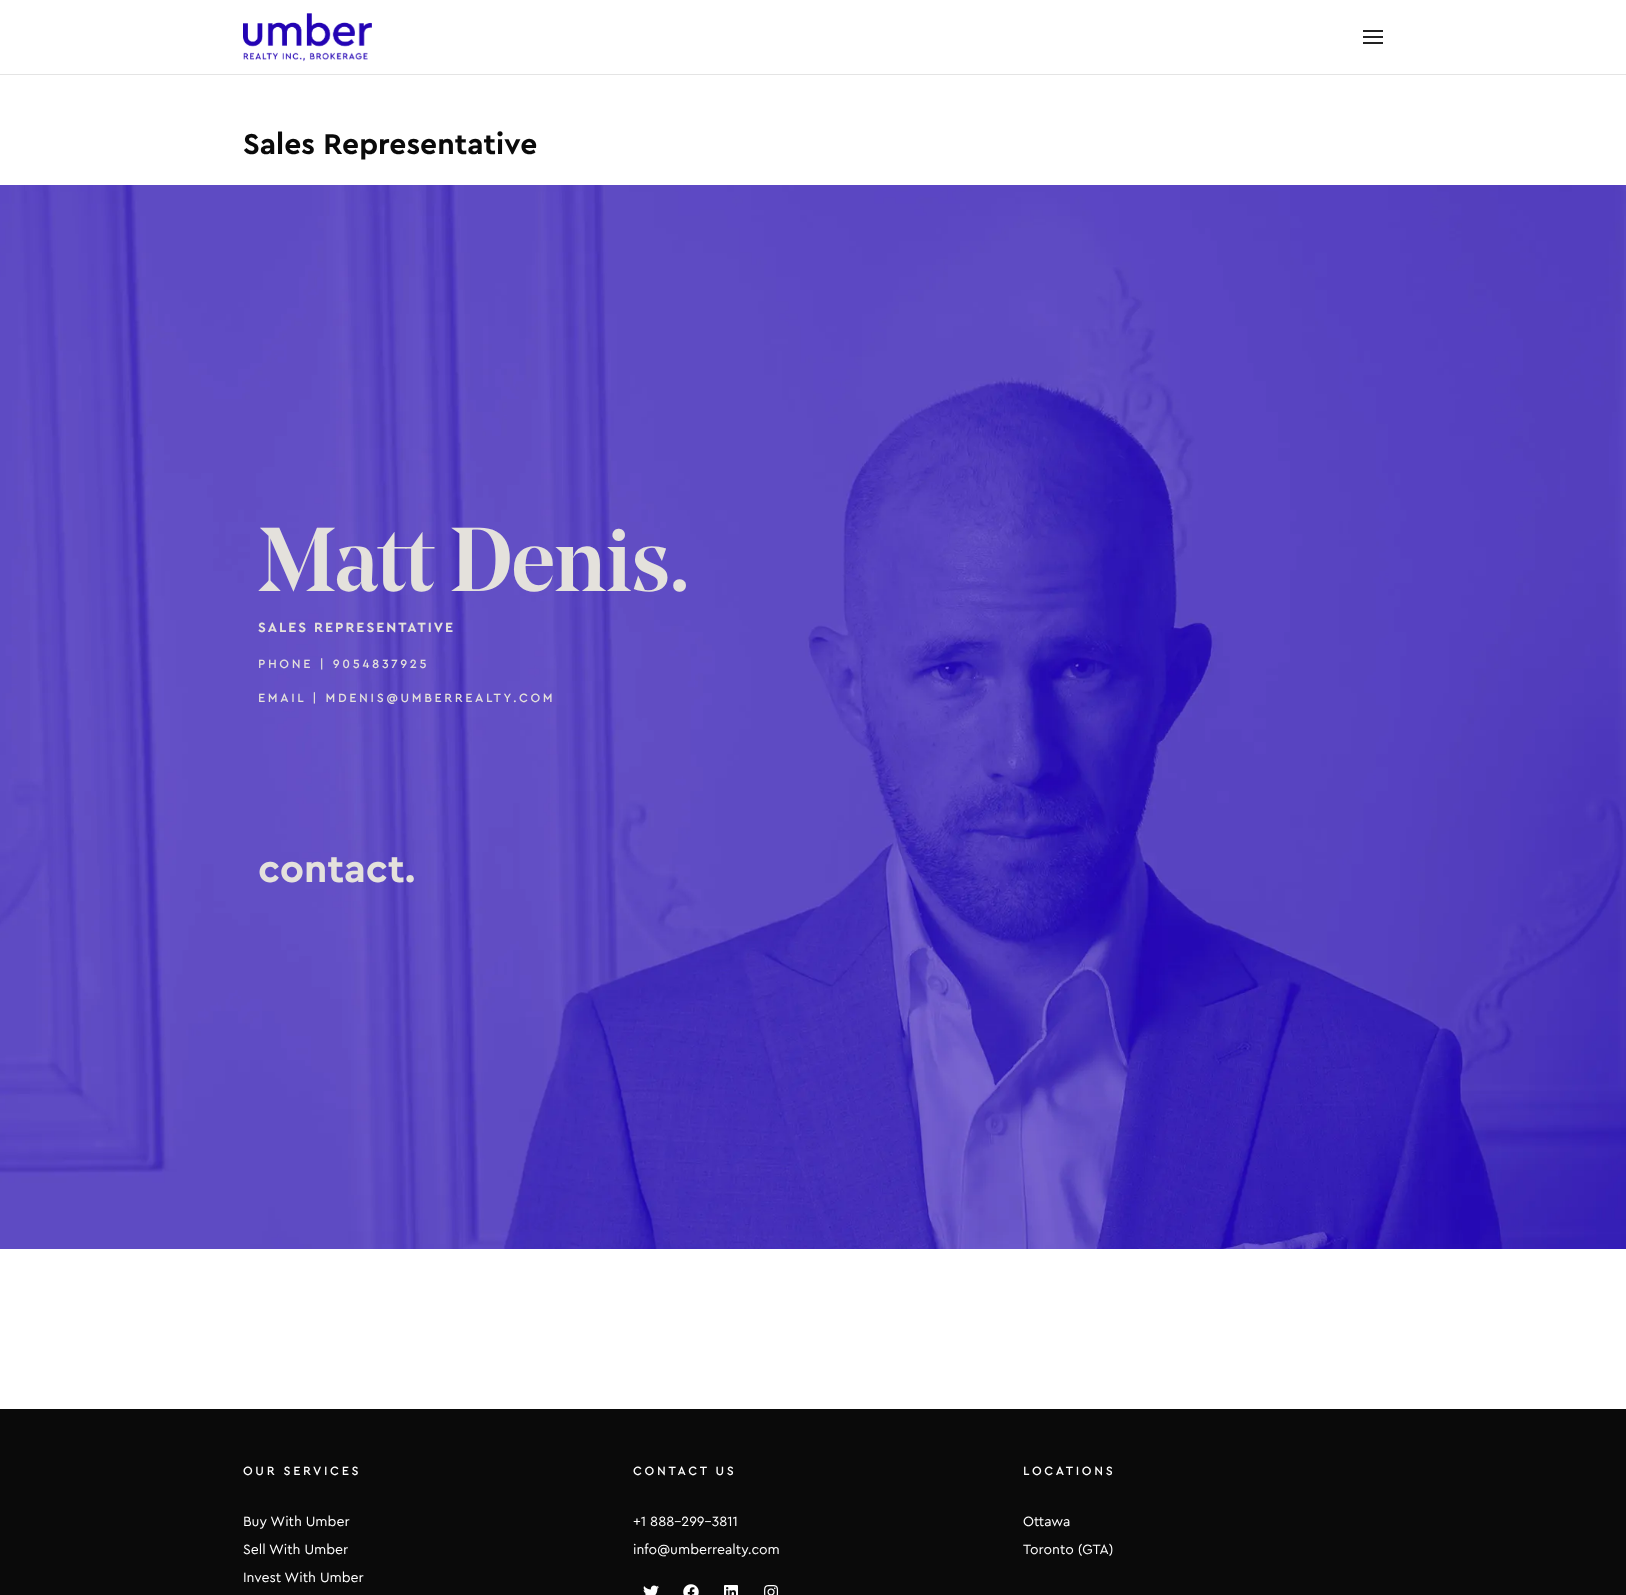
<?xml version="1.0" encoding="UTF-8"?>
<svg xmlns="http://www.w3.org/2000/svg" width="1626" height="1595">
    <rect width="100%" height="100%" fill="#FFFFFF"/>
    <rect x="0" y="74" width="1626" height="1" fill="#E4E4E4"/>
    <image x="243" y="13" width="129" height="49" href="img_01.png"/>
    <rect x="1363" y="36" width="20" height="2" fill="#222222"/>
    <rect x="1363" y="30" width="20" height="2" fill="#222222"/>
    <rect x="1363" y="42" width="20" height="2" fill="#222222"/>
    <text x="243" y="154" font-family="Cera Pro" font-size="30" font-weight="700" fill="#0A0A0A">Sales Representative</text>
    <image x="0" y="185" width="1626" height="1064" href="img_02.png"/>
    <text x="258" y="591" font-family="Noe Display" font-size="90" font-weight="500" letter-spacing="-1" fill="#E4E1DC">Matt Denis.</text>
    <text x="258" y="632" font-family="Cera Pro" font-size="14" font-weight="700" letter-spacing="2" fill="#E4E1DC">SALES REPRESENTATIVE</text>
    <text x="258" y="668" font-family="'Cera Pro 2'" font-size="12" font-weight="700" letter-spacing="3" fill="#E4E1DC">PHONE | 9054837925</text>
    <text x="258" y="702" font-family="'Cera Pro 2'" font-size="12" font-weight="700" letter-spacing="3" fill="#E4E1DC">EMAIL | MDENIS@UMBERREALTY.COM</text>
    <text x="258" y="882" font-family="Cera Pro" font-size="40" font-weight="700" fill="#E4E1DC">contact.</text>
    <rect x="0" y="1409" width="1626" height="186" fill="#0A0A0A"/>
    <text x="243" y="1475" font-family="'Cera Pro 2'" font-size="12" font-weight="700" letter-spacing="3" fill="#FFFFFF">OUR SERVICES</text>
    <text x="243" y="1526" font-family="Cera Pro" font-size="14" fill="#FFFFFF">Buy With Umber</text>
    <text x="243" y="1554" font-family="Cera Pro" font-size="14" fill="#FFFFFF">Sell With Umber</text>
    <text x="243" y="1582" font-family="Cera Pro" font-size="14" fill="#FFFFFF">Invest With Umber</text>
    <text x="633" y="1475" font-family="'Cera Pro 2'" font-size="12" font-weight="700" letter-spacing="3" fill="#FFFFFF">CONTACT US</text>
    <text x="633" y="1526" font-family="Cera Pro" font-size="14" fill="#FFFFFF">+1 888-299-3811</text>
    <text x="633" y="1554" font-family="Cera Pro" font-size="14" fill="#FFFFFF">info@umberrealty.com</text>
    <image x="643" y="1585" width="16" height="10" href="img_03.png"/>
    <image x="683" y="1584" width="16" height="11" href="img_04.png"/>
    <image x="724" y="1585" width="14" height="10" href="img_05.png"/>
    <image x="764" y="1585" width="15" height="10" href="img_06.png"/>
    <text x="1023" y="1475" font-family="'Cera Pro 2'" font-size="12" font-weight="700" letter-spacing="3" fill="#FFFFFF">LOCATIONS</text>
    <text x="1023" y="1526" font-family="Cera Pro" font-size="14" fill="#FFFFFF">Ottawa</text>
    <text x="1023" y="1554" font-family="Cera Pro" font-size="14" fill="#FFFFFF">Toronto (GTA)</text>
</svg>
